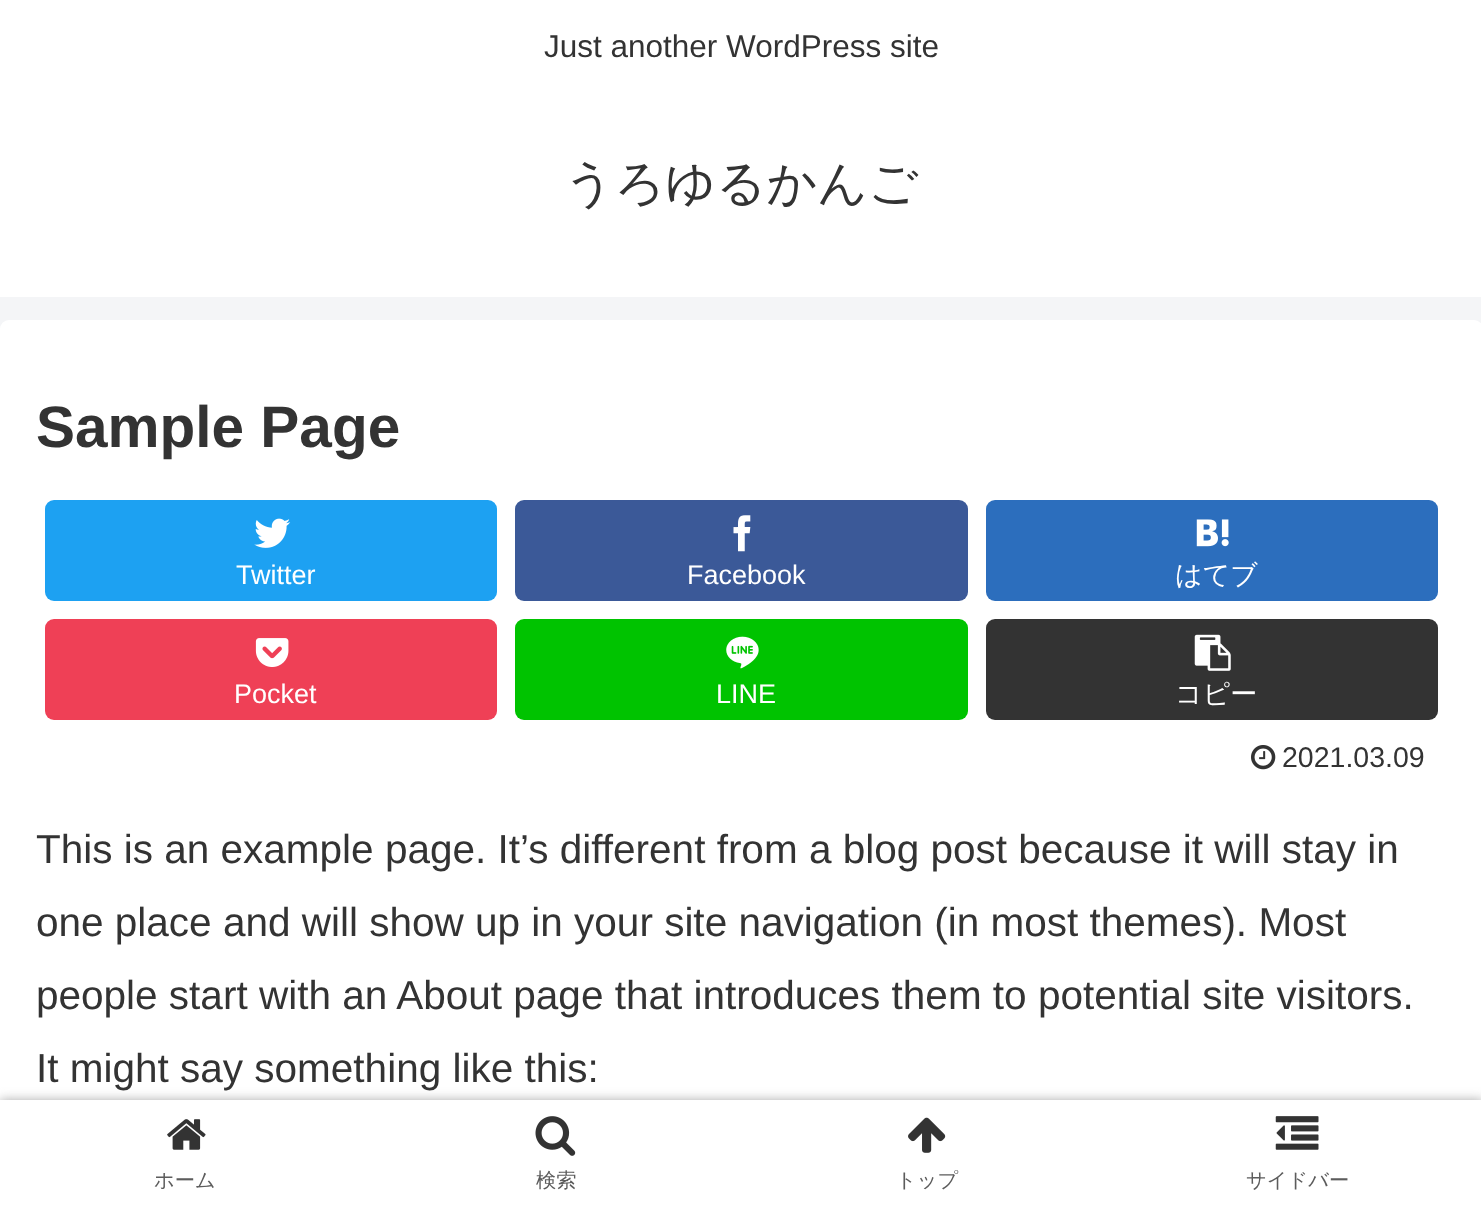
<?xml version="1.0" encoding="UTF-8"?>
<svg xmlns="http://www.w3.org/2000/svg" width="1481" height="1211">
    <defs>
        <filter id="blur1" x="-50%" y="-200%" width="200%" height="500%"><feGaussianBlur stdDeviation="5.5"/></filter>
    </defs>
    <rect width="100%" height="100%" fill="#F4F5F7"/>
    <rect x="0" y="0" width="1481" height="297" fill="#FFFFFF"/>
    <text x="544" y="57" font-family="Liberation Sans" font-size="31.5" fill="#333333">Just another WordPress site</text>
    <text x="564" y="200" font-family="WenQuanYi Zen Hei" font-size="49.5" font-weight="500" fill="#333333">うろゆるかんご</text>
    <rect x="0" y="320" width="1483" height="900" rx="9" fill="#FFFFFF"/>
    <text x="36" y="447" font-family="Liberation Sans" font-size="58.5" font-weight="700" fill="#333333">Sample Page</text>
    <rect x="45" y="500" width="452" height="101" rx="9" fill="#1DA1F2"/>
    <image x="254" y="518" width="37" height="30" href="img_01.png"/>
    <text x="236" y="584" font-family="Liberation Sans" font-size="27" fill="#FFFFFF">Twitter</text>
    <rect x="515" y="500" width="453" height="101" rx="9" fill="#3B5998"/>
    <image x="733" y="515" width="18" height="37" href="img_02.png"/>
    <text x="687" y="584" font-family="Liberation Sans" font-size="27" fill="#FFFFFF">Facebook</text>
    <rect x="986" y="500" width="452" height="101" rx="9" fill="#2C6EBD"/>
    <image x="1196" y="519" width="33" height="28" href="img_03.png"/>
    <text x="1175" y="584" font-family="WenQuanYi Zen Hei" font-size="27" font-weight="500" fill="#FFFFFF">はてブ</text>
    <rect x="45" y="619" width="452" height="101" rx="9" fill="#EF4056"/>
    <image x="255" y="638" width="34" height="29" href="img_04.png"/>
    <text x="234" y="703" font-family="Liberation Sans" font-size="27" fill="#FFFFFF">Pocket</text>
    <rect x="515" y="619" width="453" height="101" rx="9" fill="#00C300"/>
    <image x="726" y="636" width="33" height="33" href="img_05.png"/>
    <text x="716" y="703" font-family="Liberation Sans" font-size="27" fill="#FFFFFF">LINE</text>
    <rect x="986" y="619" width="452" height="101" rx="9" fill="#333333"/>
    <image x="1194" y="634" width="37" height="37" href="img_06.png"/>
    <text x="1175" y="703" font-family="WenQuanYi Zen Hei" font-size="27" font-weight="500" fill="#FFFFFF">コピー</text>
    <image x="1251" y="745" width="25" height="25" href="img_07.png"/>
    <text x="1282" y="767" font-family="Liberation Sans" font-size="28.5" fill="#333333">2021.03.09</text>
    <text font-family="Liberation Sans" font-size="40.5" fill="#333333">
        <tspan x="36" y="863">This is an example page. It’s different from a blog post because it will stay in</tspan>
        <tspan x="36" y="936">one place and will show up in your site navigation (in most themes). Most</tspan>
        <tspan x="36" y="1009">people start with an About page that introduces them to potential site visitors.</tspan>
        <tspan x="36" y="1082">It might say something like this:</tspan>
    </text>
    <rect x="0" y="1100" width="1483" height="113" fill="#A9A9A9" filter="url(#blur1)"/>
    <rect x="0" y="1100" width="1481" height="111" fill="#FFFFFF"/>
    <image x="167" y="1119" width="39" height="31" href="img_08.png"/>
    <text x="154" y="1187" font-family="WenQuanYi Zen Hei" font-size="20.25" font-weight="500" fill="#5C5C5C">ホーム</text>
    <image x="535" y="1116" width="41" height="40" href="img_09.png"/>
    <text x="536" y="1187" font-family="WenQuanYi Zen Hei" font-size="20.25" font-weight="500" fill="#5C5C5C">検索</text>
    <image x="908" y="1117" width="38" height="36" href="img_10.png"/>
    <text x="896" y="1187" font-family="WenQuanYi Zen Hei" font-size="20.25" font-weight="500" fill="#5C5C5C">トップ</text>
    <image x="1275" y="1116" width="44" height="34" href="img_11.png"/>
    <text x="1246" y="1187" font-family="WenQuanYi Zen Hei" font-size="20.25" font-weight="500" fill="#5C5C5C">サイドバー</text>
</svg>
